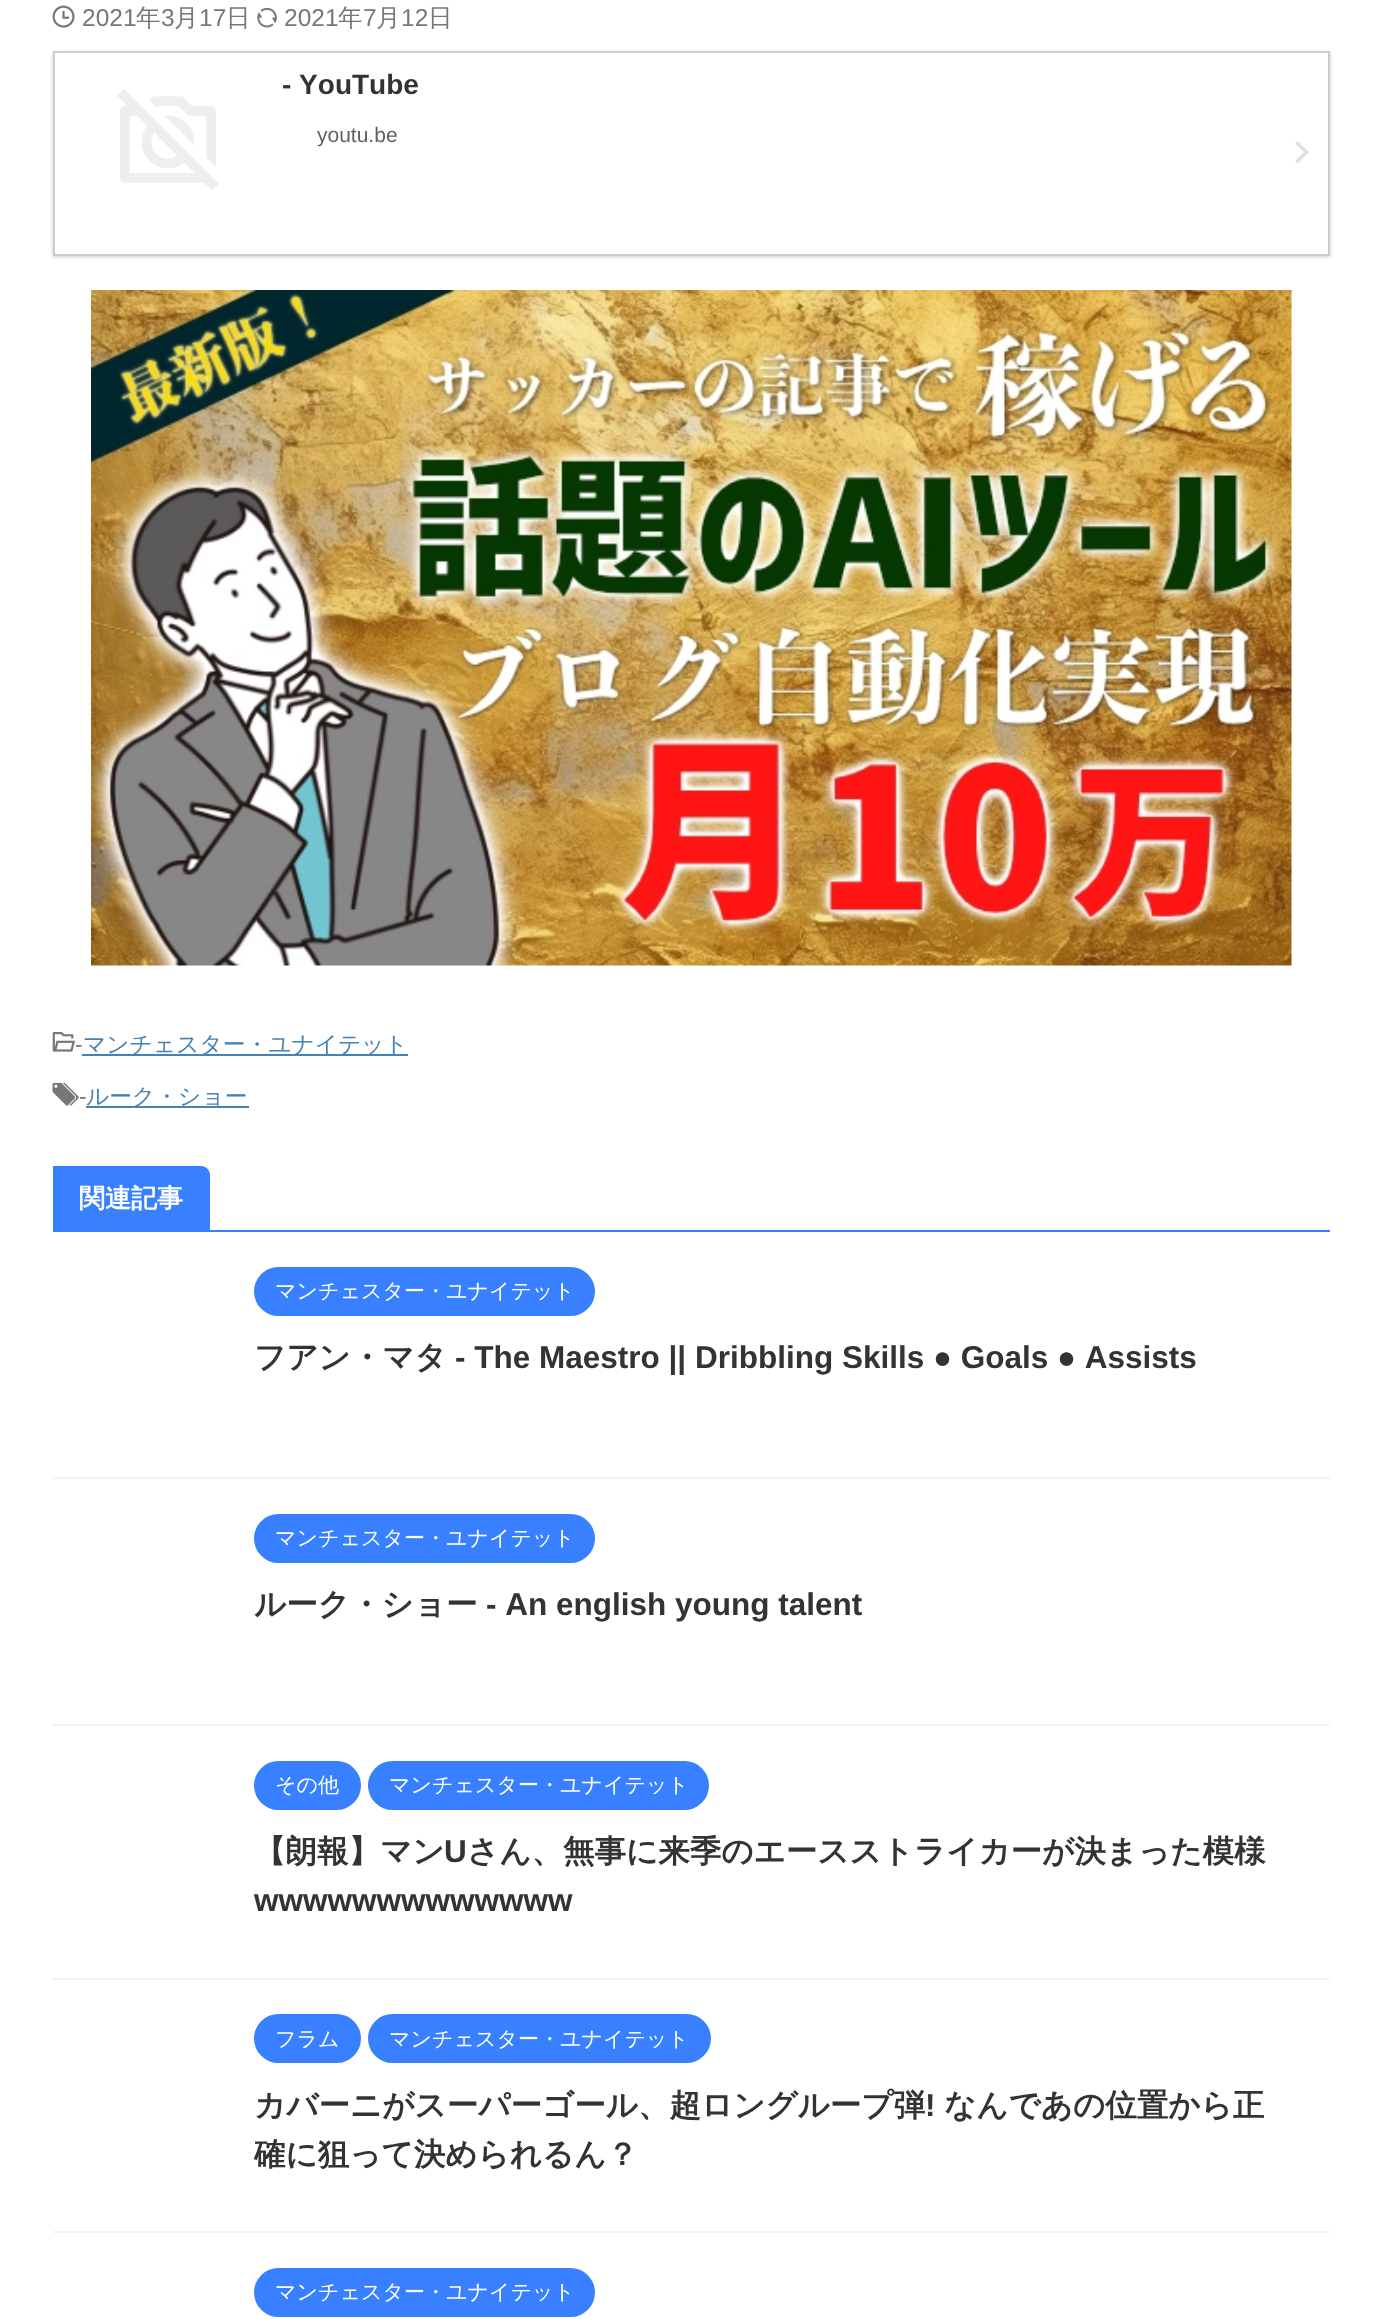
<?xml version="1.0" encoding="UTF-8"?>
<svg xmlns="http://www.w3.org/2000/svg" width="1382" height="2324">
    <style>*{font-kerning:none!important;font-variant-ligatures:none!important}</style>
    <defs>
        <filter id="blur1" x="-50%" y="-200%" width="200%" height="500%"><feGaussianBlur stdDeviation="2"/></filter>
    </defs>
    <rect width="100%" height="100%" fill="#FFFFFF"/>
    <image x="52" y="5" width="23" height="23" href="img_01.png"/>
    <text x="82" y="26" font-family="Liberation Sans" font-size="24.5" fill="#777777">2021</text>
    <text x="136" y="26" font-family="WenQuanYi Zen Hei" font-size="24.5" font-weight="500" fill="#777777">年</text>
    <text x="161" y="26" font-family="Liberation Sans" font-size="24.5" fill="#777777">3</text>
    <text x="174" y="26" font-family="WenQuanYi Zen Hei" font-size="24.5" font-weight="500" fill="#777777">月</text>
    <text x="199" y="26" font-family="Liberation Sans" font-size="24.5" fill="#777777">17</text>
    <text x="226" y="26" font-family="WenQuanYi Zen Hei" font-size="24.5" font-weight="500" fill="#777777">日</text>
    <image x="257" y="7" width="20" height="21" href="img_02.png"/>
    <text x="284" y="26" font-family="Liberation Sans" font-size="24.5" fill="#777777">2021</text>
    <text x="338" y="26" font-family="WenQuanYi Zen Hei" font-size="24.5" font-weight="500" fill="#777777">年</text>
    <text x="363" y="26" font-family="Liberation Sans" font-size="24.5" fill="#777777">7</text>
    <text x="376" y="26" font-family="WenQuanYi Zen Hei" font-size="24.5" font-weight="500" fill="#777777">月</text>
    <text x="401" y="26" font-family="Liberation Sans" font-size="24.5" fill="#777777">12</text>
    <text x="428" y="26" font-family="WenQuanYi Zen Hei" font-size="24.5" font-weight="500" fill="#777777">日</text>
    <rect x="53" y="53" width="1277" height="204" fill="#000000" fill-opacity="0.2" filter="url(#blur1)"/>
    <rect x="54" y="52" width="1275" height="203" fill="#FFFFFF" stroke="#CCCCCC" stroke-width="2"/>
    <image x="117" y="89" width="102" height="101" href="img_03.png"/>
    <text x="282" y="94" font-family="Liberation Sans" font-size="28" font-weight="700" fill="#333333">- YouTube</text>
    <text x="317" y="142" font-family="Liberation Sans" font-size="21" fill="#616161">youtu.be</text>
    <path d="M 1304 152 L 1295 143.5 L 1297.5 141 L 1309 152 L 1297.5 163.5 L 1295 161 Z" fill="#E0E0E0"/>
    <image x="91" y="290" width="1201" height="676" href="img_04.png"/>
    <image x="52" y="1032" width="23" height="20" href="img_05.png"/>
    <text x="75" y="1052" font-family="Liberation Sans" font-size="22.75" fill="#777777">-</text>
    <rect x="82" y="1054" width="326" height="2" fill="#4682B4"/>
    <text x="83" y="1052" font-family="WenQuanYi Zen Hei" font-size="22.75" font-weight="500" fill="#4682B4">マンチェスター・ユナイテッド</text>
    <image x="52" y="1082" width="27" height="24" href="img_06.png"/>
    <text x="79" y="1104" font-family="Liberation Sans" font-size="22.75" fill="#777777">-</text>
    <rect x="86" y="1106" width="163" height="2" fill="#4682B4"/>
    <text x="86" y="1104" font-family="WenQuanYi Zen Hei" font-size="22.75" font-weight="500" fill="#4682B4">ルーク・ショー</text>
    <rect x="53" y="1230" width="1277" height="2" fill="#3880FF"/>
    <path d="M 53 1166 H 201 C 206 1166 210 1170 210 1175 V 1230 H 53 Z" fill="#3880FF"/>
    <text x="79" y="1207" font-family="WenQuanYi Zen Hei" font-size="26" font-weight="700" fill="#FFFFFF">関連記事</text>
    <rect x="53" y="1477" width="1277" height="2" fill="#F3F3F3"/>
    <rect x="254" y="1267" width="341" height="49" rx="24.5" fill="#3880FF"/>
    <text x="275" y="1298" font-family="WenQuanYi Zen Hei" font-size="21" font-weight="500" fill="#FFFFFF">マンチェスター・ユナイテッド</text>
    <text x="254" y="1368" font-family="WenQuanYi Zen Hei" font-size="31.5" font-weight="700" fill="#333333">フアン・マタ</text>
    <text x="455" y="1368" font-family="Liberation Sans" font-size="31.5" font-weight="700" fill="#333333">- The Maestro || Dribbling Skills ● Goals ● Assists</text>
    <rect x="53" y="1724" width="1277" height="2" fill="#F3F3F3"/>
    <rect x="254" y="1514" width="341" height="49" rx="24.5" fill="#3880FF"/>
    <text x="275" y="1545" font-family="WenQuanYi Zen Hei" font-size="21" font-weight="500" fill="#FFFFFF">マンチェスター・ユナイテッド</text>
    <text x="254" y="1615" font-family="WenQuanYi Zen Hei" font-size="31.5" font-weight="700" fill="#333333">ルーク・ショー</text>
    <text x="486" y="1615" font-family="Liberation Sans" font-size="31.5" font-weight="700" fill="#333333">- An english young talent</text>
    <rect x="53" y="1978" width="1277" height="2" fill="#F3F3F3"/>
    <rect x="254" y="1761" width="107" height="49" rx="24.5" fill="#3880FF"/>
    <text x="275" y="1792" font-family="WenQuanYi Zen Hei" font-size="21" font-weight="500" fill="#FFFFFF">その他</text>
    <rect x="368" y="1761" width="341" height="49" rx="24.5" fill="#3880FF"/>
    <text x="389" y="1792" font-family="WenQuanYi Zen Hei" font-size="21" font-weight="500" fill="#FFFFFF">マンチェスター・ユナイテッド</text>
    <text x="254" y="1862" font-family="WenQuanYi Zen Hei" font-size="31.5" font-weight="700" fill="#333333">【朗報】マン</text>
    <text x="444" y="1862" font-family="Liberation Sans" font-size="31.5" font-weight="700" fill="#333333">U</text>
    <text x="467" y="1862" font-family="WenQuanYi Zen Hei" font-size="31.5" font-weight="700" fill="#333333">さん、無事に来季のエースストライカーが決まった模様</text>
    <text x="254" y="1911" font-family="Liberation Sans" font-size="31.5" font-weight="700" fill="#333333">wwwwwwwwwwwww</text>
    <rect x="53" y="2231" width="1277" height="2" fill="#F3F3F3"/>
    <rect x="254" y="2014" width="107" height="49" rx="24.5" fill="#3880FF"/>
    <text x="275" y="2046" font-family="WenQuanYi Zen Hei" font-size="21" font-weight="500" fill="#FFFFFF">フラム</text>
    <rect x="368" y="2014" width="343" height="49" rx="24.5" fill="#3880FF"/>
    <text x="389" y="2046" font-family="WenQuanYi Zen Hei" font-size="21" font-weight="500" fill="#FFFFFF">マンチェスター・ユナイテッド</text>
    <text x="254" y="2116" font-family="WenQuanYi Zen Hei" font-size="31.5" font-weight="700" fill="#333333">カバーニがスーパーゴール、超ロングループ弾</text>
    <text x="925" y="2116" font-family="Liberation Sans" font-size="31.5" font-weight="700" fill="#333333">!</text>
    <text x="944" y="2116" font-family="WenQuanYi Zen Hei" font-size="31.5" font-weight="700" fill="#333333">なんであの位置から正</text>
    <text x="254" y="2165" font-family="WenQuanYi Zen Hei" font-size="31.5" font-weight="700" fill="#333333">確に狙って決められるん？</text>
    <rect x="254" y="2268" width="341" height="49" rx="24.5" fill="#3880FF"/>
    <text x="275" y="2299" font-family="WenQuanYi Zen Hei" font-size="21" font-weight="500" fill="#FFFFFF">マンチェスター・ユナイテッド</text>
</svg>
